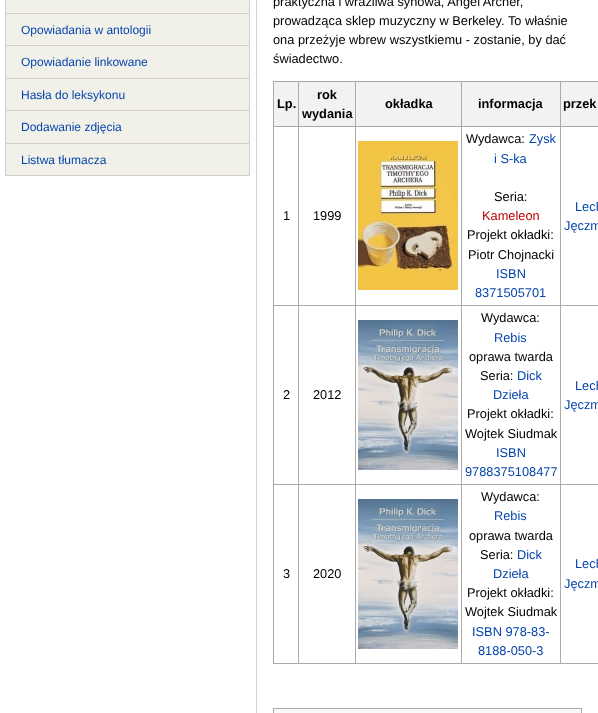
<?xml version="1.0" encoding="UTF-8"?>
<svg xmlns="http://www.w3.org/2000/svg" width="598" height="713">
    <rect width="100%" height="100%" fill="#FFFFFF"/>
    <rect x="249" y="0" width="1" height="176" fill="#D4D2C7"/>
    <rect x="5" y="13" width="245" height="1" fill="#D4D2C7"/>
    <rect x="5" y="0" width="1" height="14" fill="#D4D2C7"/>
    <rect x="6" y="0" width="243" height="13" fill="#F2F1E9"/>
    <rect x="5" y="45" width="245" height="1" fill="#D4D2C7"/>
    <rect x="5" y="14" width="1" height="32" fill="#D4D2C7"/>
    <rect x="6" y="14" width="243" height="31" fill="#F2F1E9"/>
    <text x="21" y="34" font-family="Liberation Sans" font-size="12" fill="#0645AD">Opowiadania w antologii</text>
    <rect x="5" y="78" width="245" height="1" fill="#D4D2C7"/>
    <rect x="5" y="46" width="1" height="33" fill="#D4D2C7"/>
    <rect x="6" y="46" width="243" height="32" fill="#F2F1E9"/>
    <text x="21" y="66" font-family="Liberation Sans" font-size="12" fill="#0645AD">Opowiadanie linkowane</text>
    <rect x="5" y="110" width="245" height="1" fill="#D4D2C7"/>
    <rect x="5" y="79" width="1" height="32" fill="#D4D2C7"/>
    <rect x="6" y="79" width="243" height="31" fill="#F2F1E9"/>
    <text x="21" y="99" font-family="Liberation Sans" font-size="12" fill="#0645AD">Hasła do leksykonu</text>
    <rect x="5" y="143" width="245" height="1" fill="#D4D2C7"/>
    <rect x="5" y="111" width="1" height="33" fill="#D4D2C7"/>
    <rect x="6" y="111" width="243" height="32" fill="#F2F1E9"/>
    <text x="21" y="131" font-family="Liberation Sans" font-size="12" fill="#0645AD">Dodawanie zdjęcia</text>
    <rect x="5" y="175" width="245" height="1" fill="#D4D2C7"/>
    <rect x="5" y="144" width="1" height="32" fill="#D4D2C7"/>
    <rect x="6" y="144" width="243" height="31" fill="#F2F1E9"/>
    <text x="21" y="164" font-family="Liberation Sans" font-size="12" fill="#0645AD">Listwa tłumacza</text>
    <rect x="256" y="0" width="1" height="713" fill="#D4D2C7"/>
    <text font-family="Liberation Sans" font-size="12.8" fill="#000000">
        <tspan x="273" y="6">praktyczna i wrażliwa synowa, Angel Archer,</tspan>
        <tspan x="273" y="25">prowadząca sklep muzyczny w Berkeley. To właśnie</tspan>
        <tspan x="273" y="44">ona przeżyje wbrew wszystkiemu - zostanie, by dać</tspan>
        <tspan x="273" y="63">świadectwo.</tspan>
    </text>
    <rect x="273" y="81" width="325" height="1" fill="#AAAAAA"/>
    <rect x="273" y="663" width="325" height="1" fill="#AAAAAA"/>
    <rect x="273" y="81" width="1" height="583" fill="#AAAAAA"/>
    <rect x="274" y="82" width="24" height="44" fill="#F2F2F2"/>
    <text x="277" y="108" font-family="Liberation Sans" font-size="12.8" font-weight="700" fill="#000000">Lp.</text>
    <rect x="299" y="82" width="56" height="44" fill="#F2F2F2"/>
    <rect x="560" y="126" width="38" height="1" fill="#AAAAAA"/>
    <rect x="560" y="305" width="38" height="1" fill="#AAAAAA"/>
    <rect x="560" y="484" width="38" height="1" fill="#AAAAAA"/>
    <rect x="560" y="484" width="1" height="180" fill="#AAAAAA"/>
    <rect x="461" y="484" width="100" height="1" fill="#AAAAAA"/>
    <rect x="560" y="305" width="1" height="180" fill="#AAAAAA"/>
    <rect x="461" y="305" width="100" height="1" fill="#AAAAAA"/>
    <rect x="560" y="126" width="1" height="180" fill="#AAAAAA"/>
    <rect x="461" y="126" width="100" height="1" fill="#AAAAAA"/>
    <rect x="461" y="484" width="1" height="180" fill="#AAAAAA"/>
    <rect x="355" y="484" width="107" height="1" fill="#AAAAAA"/>
    <rect x="461" y="305" width="1" height="180" fill="#AAAAAA"/>
    <rect x="355" y="305" width="107" height="1" fill="#AAAAAA"/>
    <rect x="461" y="126" width="1" height="180" fill="#AAAAAA"/>
    <rect x="355" y="126" width="107" height="1" fill="#AAAAAA"/>
    <rect x="355" y="484" width="1" height="180" fill="#AAAAAA"/>
    <rect x="298" y="484" width="58" height="1" fill="#AAAAAA"/>
    <rect x="355" y="305" width="1" height="180" fill="#AAAAAA"/>
    <rect x="298" y="305" width="58" height="1" fill="#AAAAAA"/>
    <rect x="355" y="126" width="1" height="180" fill="#AAAAAA"/>
    <rect x="298" y="126" width="58" height="1" fill="#AAAAAA"/>
    <rect x="298" y="484" width="1" height="180" fill="#AAAAAA"/>
    <rect x="273" y="484" width="26" height="1" fill="#AAAAAA"/>
    <rect x="298" y="305" width="1" height="180" fill="#AAAAAA"/>
    <rect x="273" y="305" width="26" height="1" fill="#AAAAAA"/>
    <rect x="298" y="126" width="1" height="180" fill="#AAAAAA"/>
    <rect x="273" y="126" width="26" height="1" fill="#AAAAAA"/>
    <rect x="298" y="81" width="1" height="46" fill="#AAAAAA"/>
    <text x="317" y="99" font-family="Liberation Sans" font-size="12.8" font-weight="700" fill="#000000">rok</text>
    <text x="302" y="118" font-family="Liberation Sans" font-size="12.8" font-weight="700" fill="#000000">wydania</text>
    <rect x="356" y="82" width="105" height="44" fill="#F2F2F2"/>
    <rect x="355" y="81" width="1" height="46" fill="#AAAAAA"/>
    <text x="385" y="108" font-family="Liberation Sans" font-size="12.8" font-weight="700" fill="#000000">okładka</text>
    <rect x="462" y="82" width="98" height="44" fill="#F2F2F2"/>
    <rect x="461" y="81" width="1" height="46" fill="#AAAAAA"/>
    <text x="478" y="108" font-family="Liberation Sans" font-size="12.8" font-weight="700" fill="#000000">informacja</text>
    <rect x="561" y="82" width="37" height="44" fill="#F2F2F2"/>
    <rect x="560" y="81" width="1" height="46" fill="#AAAAAA"/>
    <text x="563" y="108" font-family="Liberation Sans" font-size="12.8" font-weight="700" fill="#000000">przek</text>
    <text x="283" y="220" font-family="Liberation Sans" font-size="12.8" fill="#000000">1</text>
    <text x="313" y="220" font-family="Liberation Sans" font-size="12.8" fill="#000000">1999</text>
    <image x="358" y="141" width="100" height="149" href="img_01.png"/>
    <text x="466" y="143" font-family="Liberation Sans" font-size="12.8" fill="#000000">Wydawca:</text>
    <text x="529" y="143" font-family="Liberation Sans" font-size="12.8" fill="#0645AD">Zysk</text>
    <text x="494" y="163" font-family="Liberation Sans" font-size="12.8" fill="#0645AD">i S-ka</text>
    <text x="494" y="201" font-family="Liberation Sans" font-size="12.8" fill="#000000">Seria:</text>
    <text x="482" y="220" font-family="Liberation Sans" font-size="12.8" fill="#BA0000">Kameleon</text>
    <text x="467" y="239" font-family="Liberation Sans" font-size="12.8" fill="#000000">Projekt okładki:</text>
    <text x="468" y="259" font-family="Liberation Sans" font-size="12.8" fill="#000000">Piotr Chojnacki</text>
    <text x="496" y="278" font-family="Liberation Sans" font-size="12.8" fill="#0645AD">ISBN</text>
    <text x="475" y="297" font-family="Liberation Sans" font-size="12.8" fill="#0645AD">8371505701</text>
    <text x="575" y="211" font-family="Liberation Sans" font-size="12.8" fill="#0645AD">Lech</text>
    <text x="564" y="230" font-family="Liberation Sans" font-size="12.8" fill="#0645AD">Jęczm</text>
    <text x="283" y="399" font-family="Liberation Sans" font-size="12.8" fill="#000000">2</text>
    <text x="313" y="399" font-family="Liberation Sans" font-size="12.8" fill="#000000">2012</text>
    <image x="358" y="320" width="100" height="150" href="img_02.png"/>
    <text x="481" y="322" font-family="Liberation Sans" font-size="12.8" fill="#000000">Wydawca:</text>
    <text x="494" y="342" font-family="Liberation Sans" font-size="12.8" fill="#0645AD">Rebis</text>
    <text x="469" y="361" font-family="Liberation Sans" font-size="12.8" fill="#000000">oprawa twarda</text>
    <text x="480" y="380" font-family="Liberation Sans" font-size="12.8" fill="#000000">Seria:</text>
    <text x="517" y="380" font-family="Liberation Sans" font-size="12.8" fill="#0645AD">Dick</text>
    <text x="493" y="399" font-family="Liberation Sans" font-size="12.8" fill="#0645AD">Dzieła</text>
    <text x="467" y="418" font-family="Liberation Sans" font-size="12.8" fill="#000000">Projekt okładki:</text>
    <text x="465" y="438" font-family="Liberation Sans" font-size="12.8" fill="#000000">Wojtek Siudmak</text>
    <text x="496" y="457" font-family="Liberation Sans" font-size="12.8" fill="#0645AD">ISBN</text>
    <text x="465" y="476" font-family="Liberation Sans" font-size="12.8" fill="#0645AD">9788375108477</text>
    <text x="575" y="390" font-family="Liberation Sans" font-size="12.8" fill="#0645AD">Lech</text>
    <text x="564" y="409" font-family="Liberation Sans" font-size="12.8" fill="#0645AD">Jęczm</text>
    <text x="283" y="578" font-family="Liberation Sans" font-size="12.8" fill="#000000">3</text>
    <text x="313" y="578" font-family="Liberation Sans" font-size="12.8" fill="#000000">2020</text>
    <image x="358" y="499" width="100" height="150" href="img_03.png"/>
    <text x="481" y="501" font-family="Liberation Sans" font-size="12.8" fill="#000000">Wydawca:</text>
    <text x="494" y="520" font-family="Liberation Sans" font-size="12.8" fill="#0645AD">Rebis</text>
    <text x="469" y="540" font-family="Liberation Sans" font-size="12.8" fill="#000000">oprawa twarda</text>
    <text x="480" y="559" font-family="Liberation Sans" font-size="12.8" fill="#000000">Seria:</text>
    <text x="517" y="559" font-family="Liberation Sans" font-size="12.8" fill="#0645AD">Dick</text>
    <text x="493" y="578" font-family="Liberation Sans" font-size="12.8" fill="#0645AD">Dzieła</text>
    <text x="467" y="597" font-family="Liberation Sans" font-size="12.8" fill="#000000">Projekt okładki:</text>
    <text x="465" y="616" font-family="Liberation Sans" font-size="12.8" fill="#000000">Wojtek Siudmak</text>
    <text x="472" y="636" font-family="Liberation Sans" font-size="12.8" fill="#0645AD">ISBN 978-83-</text>
    <text x="478" y="655" font-family="Liberation Sans" font-size="12.8" fill="#0645AD">8188-050-3</text>
    <text x="575" y="568" font-family="Liberation Sans" font-size="12.8" fill="#0645AD">Lech</text>
    <text x="564" y="588" font-family="Liberation Sans" font-size="12.8" fill="#0645AD">Jęczm</text>
    <rect x="273.5" y="708.5" width="308" height="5" fill="#F9F9F9" stroke="#AAAAAA"/>
</svg>
